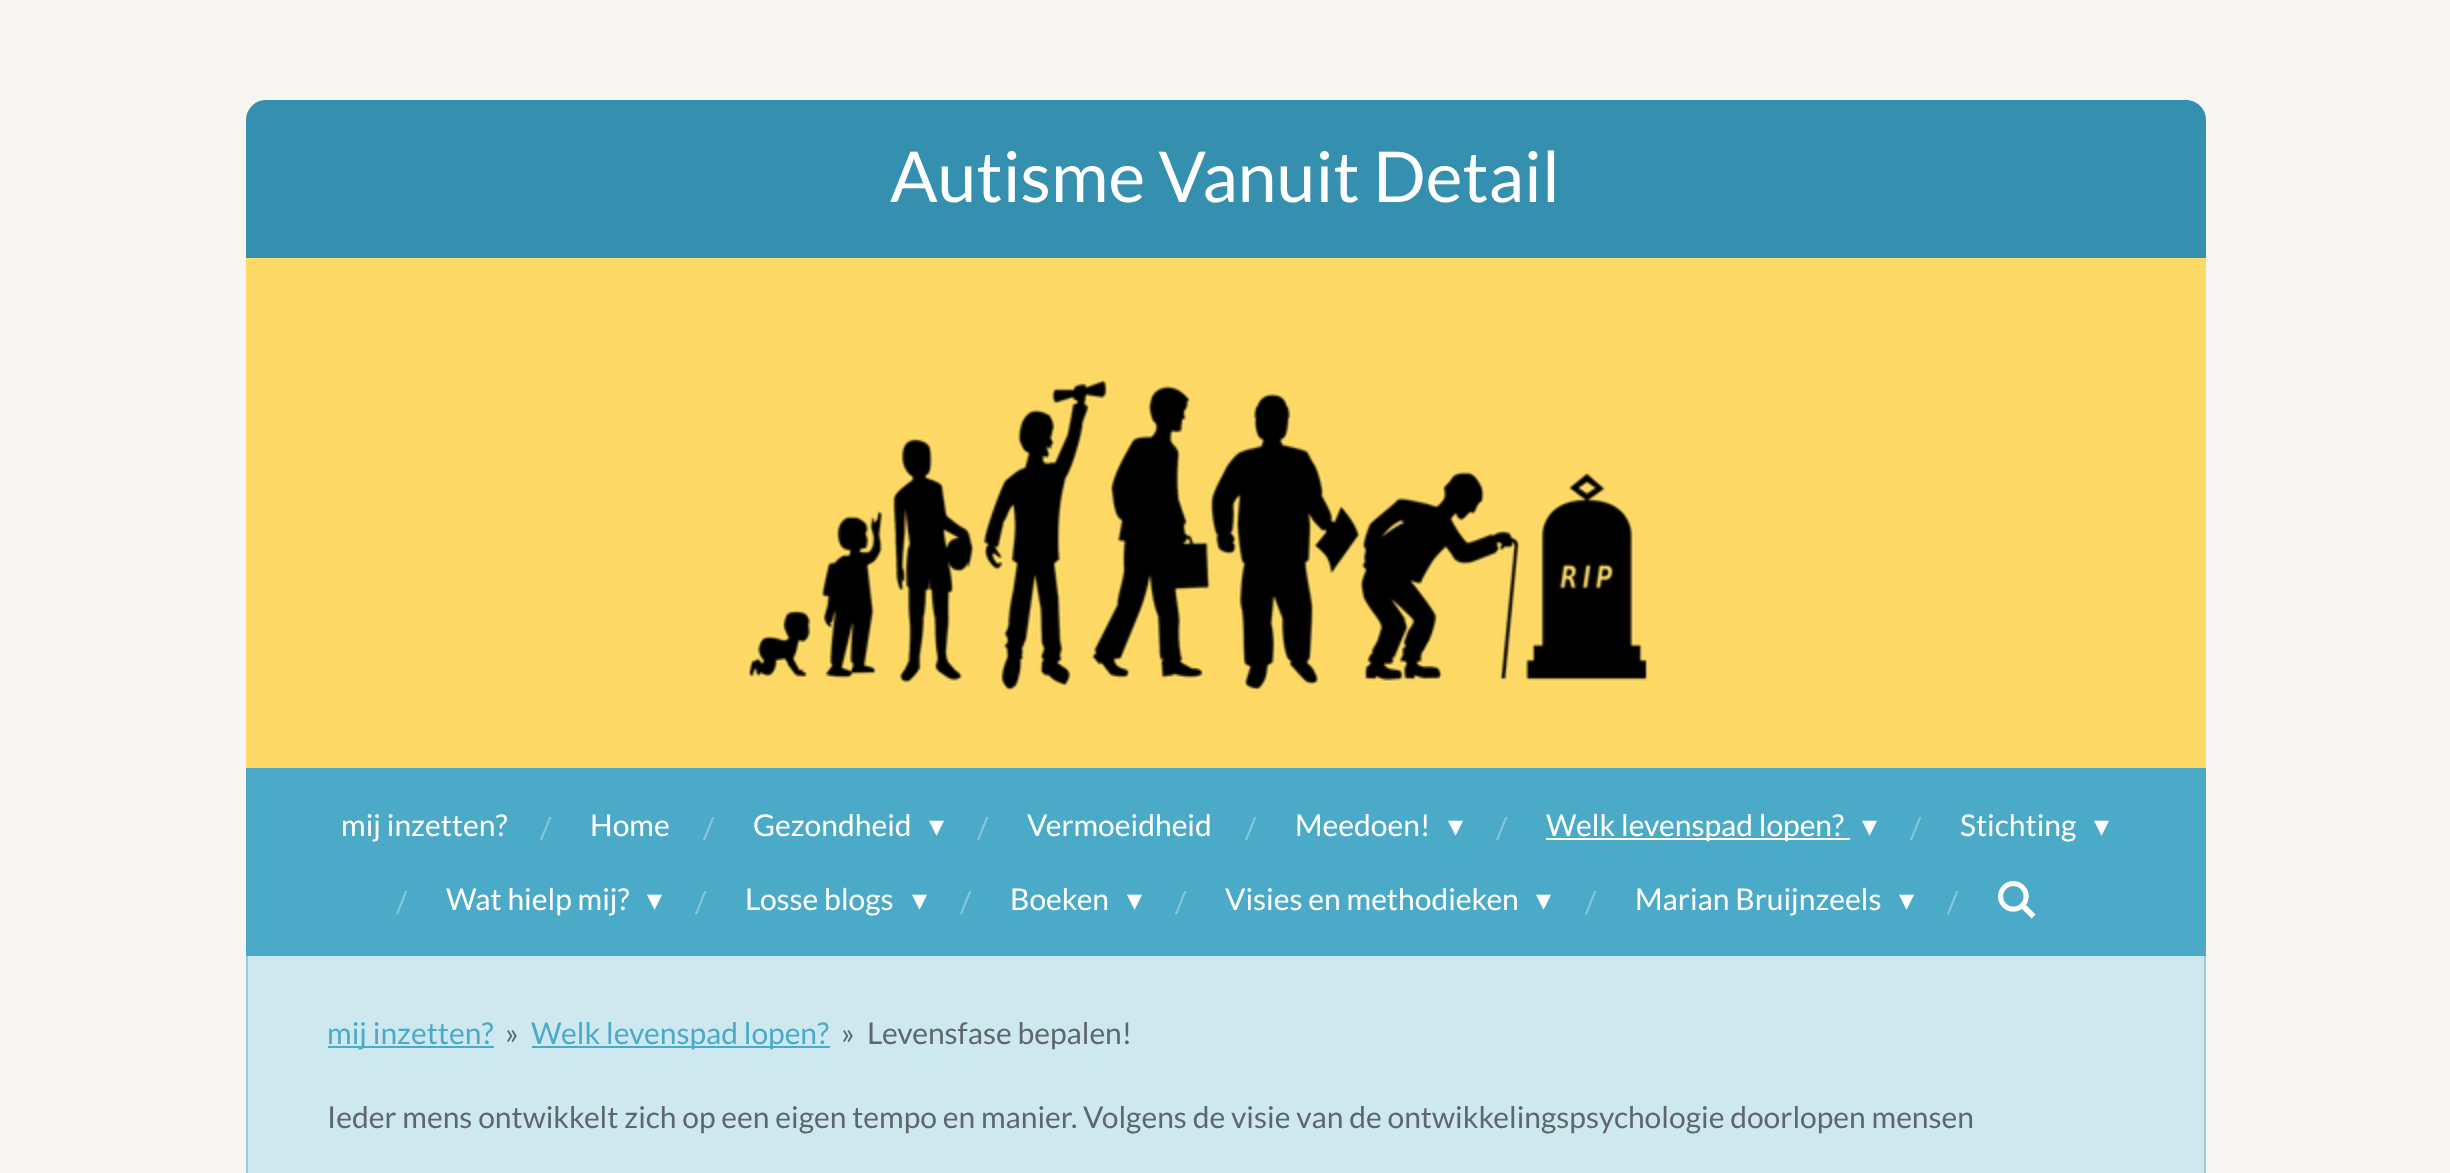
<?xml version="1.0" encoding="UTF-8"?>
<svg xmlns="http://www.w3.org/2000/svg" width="2450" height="1173">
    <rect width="100%" height="100%" fill="#F7F6F2"/>
    <path d="M 266 100 H 2186 C 2197 100 2206 109 2206 120 V 258 H 246 V 120 C 246 109 255 100 266 100 Z" fill="#3490AE"/>
    <text x="890" y="202" font-family="Lato" font-size="70" fill="#FFFFFF">Autisme Vanuit Detail</text>
    <image x="246" y="258" width="1960" height="510" href="img_01.png"/>
    <rect x="246" y="768" width="1960" height="188" fill="#4CAAC9"/>
    <text x="341" y="836" font-family="Lato" font-size="30" fill="#FFFFFF">mij inzetten?</text>
    <text x="540" y="839" font-family="Lato" font-size="30" fill="#87C6DB">/</text>
    <text x="590" y="836" font-family="Lato" font-size="30" fill="#FFFFFF">Home</text>
    <text x="703" y="839" font-family="Lato" font-size="30" fill="#87C6DB">/</text>
    <text x="753" y="836" font-family="Lato" font-size="30" fill="#FFFFFF">Gezondheid</text>
    <text x="929" y="836" font-family="DejaVu Sans" font-size="30" fill="#FFFFFF">▾</text>
    <text x="977" y="839" font-family="Lato" font-size="30" fill="#87C6DB">/</text>
    <text x="1027" y="836" font-family="Lato" font-size="30" fill="#FFFFFF">Vermoeidheid</text>
    <text x="1245" y="839" font-family="Lato" font-size="30" fill="#87C6DB">/</text>
    <text x="1295" y="836" font-family="Lato" font-size="30" fill="#FFFFFF">Meedoen!</text>
    <text x="1448" y="836" font-family="DejaVu Sans" font-size="30" fill="#FFFFFF">▾</text>
    <text x="1496" y="839" font-family="Lato" font-size="30" fill="#87C6DB">/</text>
    <rect x="1546" y="838" width="304" height="2" fill="#FFFFFF"/>
    <text x="1546" y="836" font-family="Lato" font-size="30" fill="#FFFFFF">Welk levenspad lopen?</text>
    <text x="1862" y="836" font-family="DejaVu Sans" font-size="30" fill="#FFFFFF">▾</text>
    <text x="1910" y="839" font-family="Lato" font-size="30" fill="#87C6DB">/</text>
    <text x="1960" y="836" font-family="Lato" font-size="30" fill="#FFFFFF">Stichting</text>
    <text x="2094" y="836" font-family="DejaVu Sans" font-size="30" fill="#FFFFFF">▾</text>
    <text x="396" y="913" font-family="Lato" font-size="30" fill="#87C6DB">/</text>
    <text x="446" y="910" font-family="Lato" font-size="30" fill="#FFFFFF">Wat hielp mij?</text>
    <text x="647" y="910" font-family="DejaVu Sans" font-size="30" fill="#FFFFFF">▾</text>
    <text x="695" y="913" font-family="Lato" font-size="30" fill="#87C6DB">/</text>
    <text x="745" y="910" font-family="Lato" font-size="30" fill="#FFFFFF">Losse blogs</text>
    <text x="912" y="910" font-family="DejaVu Sans" font-size="30" fill="#FFFFFF">▾</text>
    <text x="960" y="913" font-family="Lato" font-size="30" fill="#87C6DB">/</text>
    <text x="1010" y="910" font-family="Lato" font-size="30" fill="#FFFFFF">Boeken</text>
    <text x="1127" y="910" font-family="DejaVu Sans" font-size="30" fill="#FFFFFF">▾</text>
    <text x="1175" y="913" font-family="Lato" font-size="30" fill="#87C6DB">/</text>
    <text x="1225" y="910" font-family="Lato" font-size="30" fill="#FFFFFF">Visies en methodieken</text>
    <text x="1536" y="910" font-family="DejaVu Sans" font-size="30" fill="#FFFFFF">▾</text>
    <text x="1585" y="913" font-family="Lato" font-size="30" fill="#87C6DB">/</text>
    <text x="1635" y="910" font-family="Lato" font-size="30" fill="#FFFFFF">Marian Bruijnzeels</text>
    <text x="1899" y="910" font-family="DejaVu Sans" font-size="30" fill="#FFFFFF">▾</text>
    <text x="1947" y="913" font-family="Lato" font-size="30" fill="#87C6DB">/</text>
    <image x="1998" y="881" width="38" height="38" href="img_02.png"/>
    <rect x="248" y="956" width="1956" height="217" fill="#CEE8F0"/>
    <rect x="2204" y="956" width="2" height="217" fill="#93CDDE"/>
    <rect x="246" y="956" width="2" height="217" fill="#93CDDE"/>
    <rect x="328" y="1046" width="166" height="2" fill="#4CAAC9"/>
    <text x="327" y="1044" font-family="Lato" font-size="30" fill="#4CAAC9">mij inzetten?</text>
    <text x="505" y="1044" font-family="Lato" font-size="30" fill="#5D686C">»</text>
    <rect x="532" y="1046" width="298" height="2" fill="#4CAAC9"/>
    <text x="531" y="1044" font-family="Lato" font-size="30" fill="#4CAAC9">Welk levenspad lopen?</text>
    <text x="841" y="1044" font-family="Lato" font-size="30" fill="#5D686C">»</text>
    <text x="867" y="1044" font-family="Lato" font-size="30" fill="#5D686C">Levensfase bepalen!</text>
    <text x="327" y="1128" font-family="Lato" font-size="30" fill="#5D686C">Ieder mens ontwikkelt zich op een eigen tempo en manier. Volgens de visie van de ontwikkelingspsychologie doorlopen mensen</text>
</svg>
